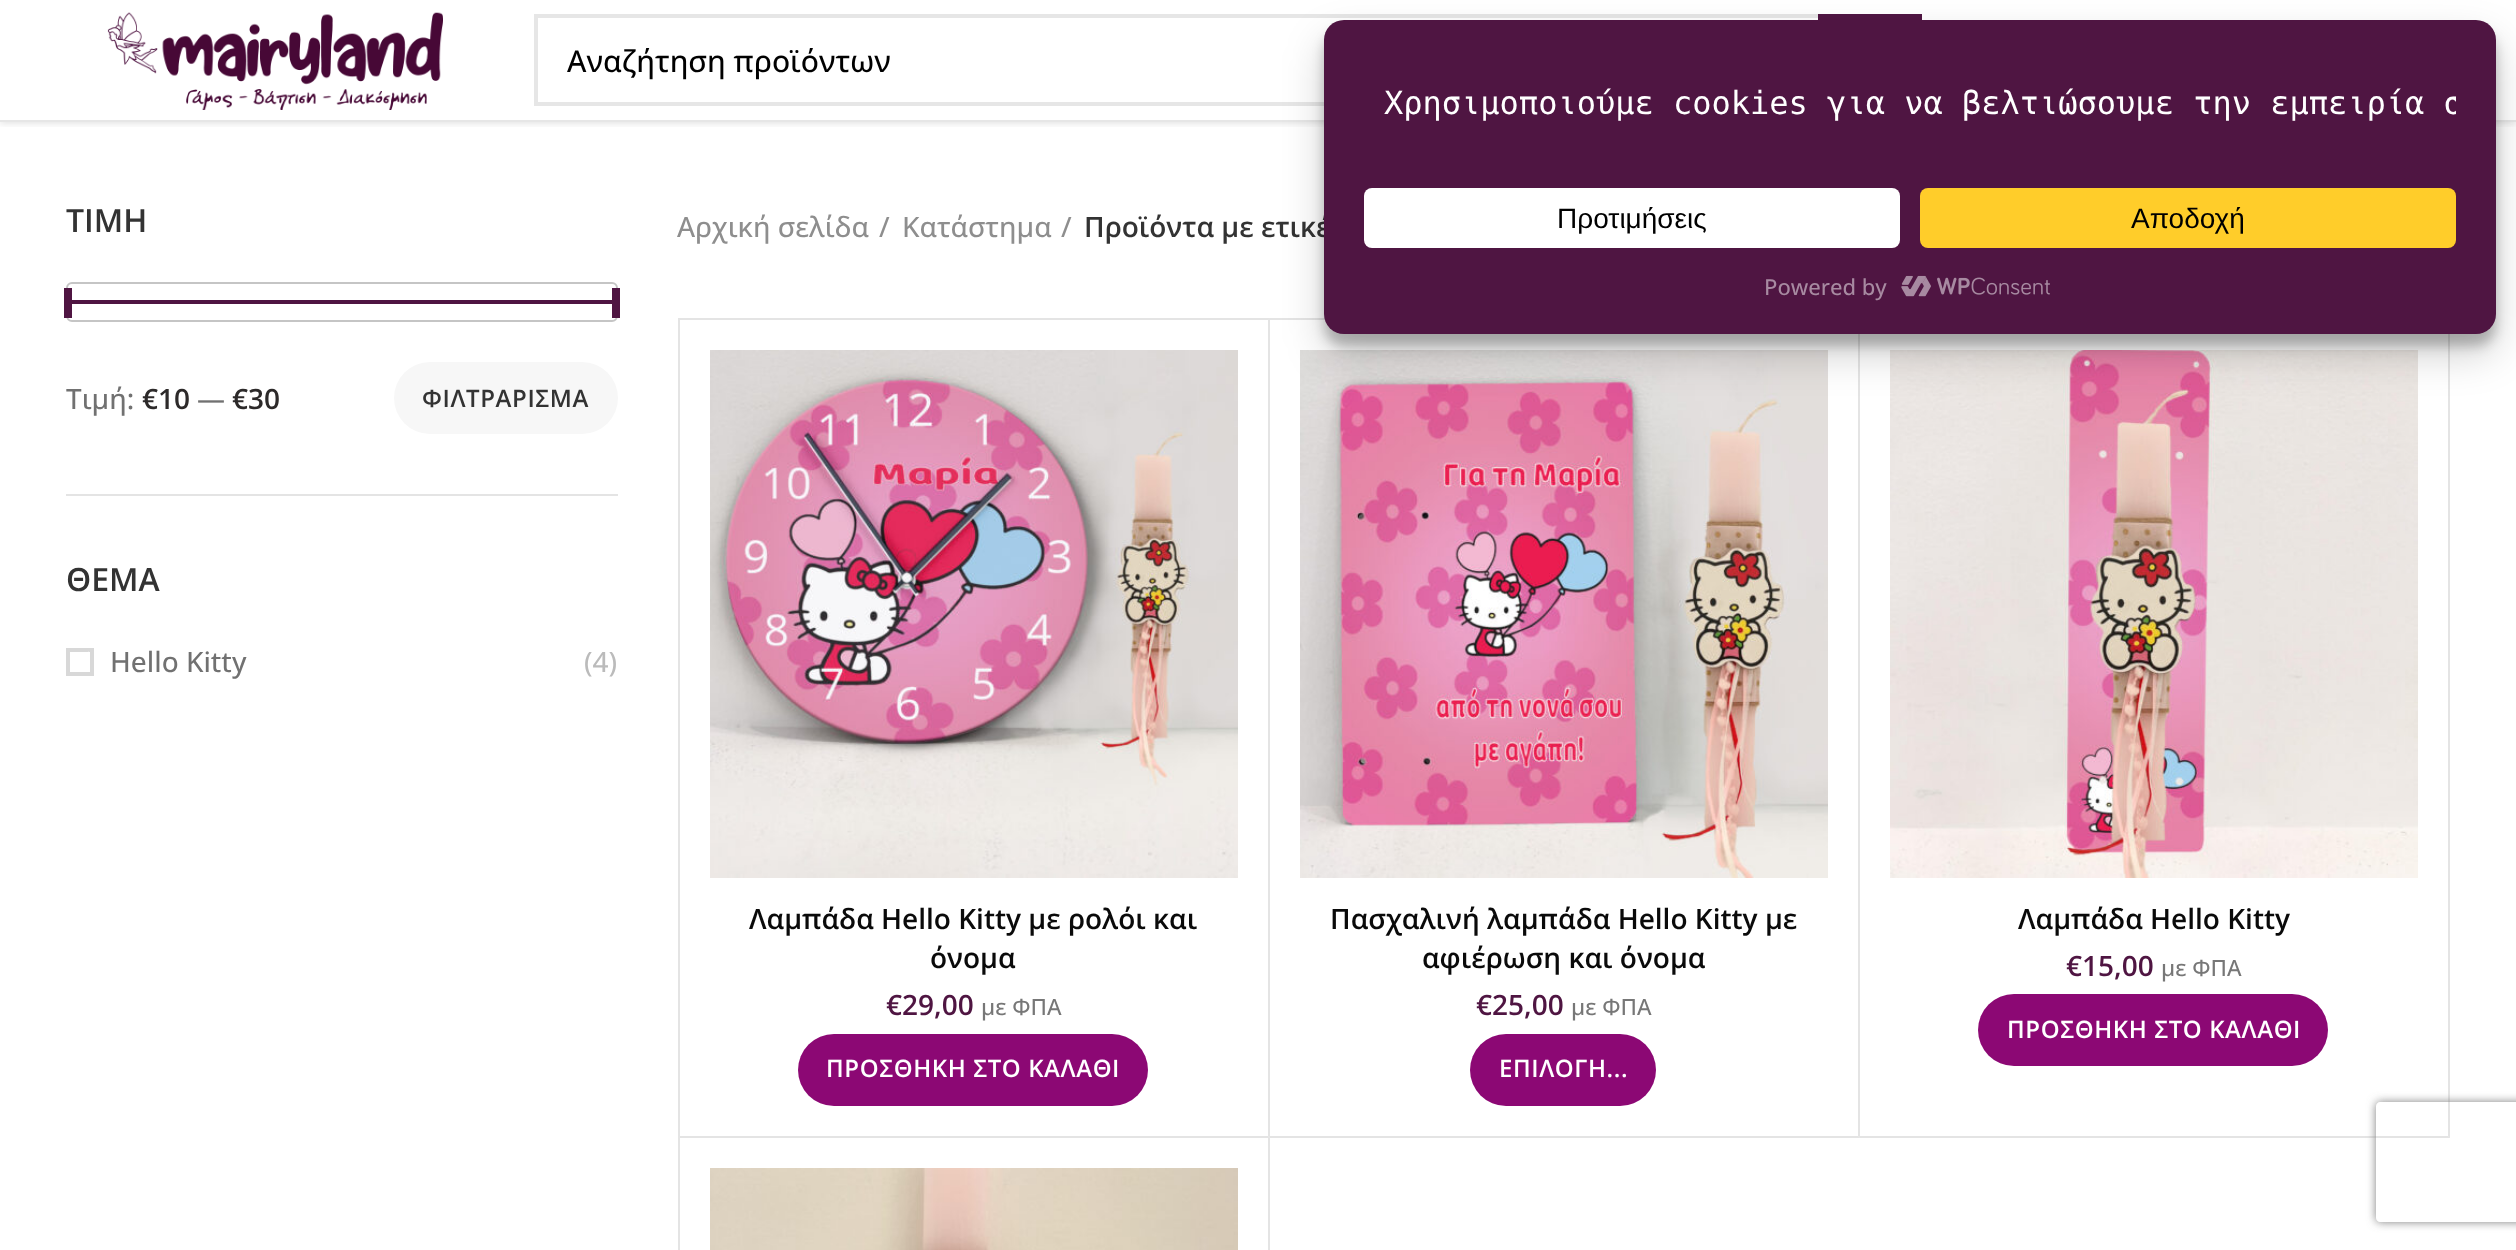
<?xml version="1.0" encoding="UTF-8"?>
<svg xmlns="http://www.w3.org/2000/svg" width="2516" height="1250">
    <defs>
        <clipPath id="clip1"><rect x="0" y="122" width="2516" height="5"/></clipPath>
        <filter id="blur1" x="-50%" y="-200%" width="200%" height="500%"><feGaussianBlur stdDeviation="3"/></filter>
        <filter id="blur2" x="-50%" y="-200%" width="200%" height="500%"><feGaussianBlur stdDeviation="6"/></filter>
        <filter id="blur3" x="-50%" y="-200%" width="200%" height="500%"><feGaussianBlur stdDeviation="20"/></filter>
        <clipPath id="clip2"><rect x="1364" y="50" width="1092" height="108"/></clipPath>
        <clipPath id="clip3"><path d="M 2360 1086 H 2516 V 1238 H 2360 Z M 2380 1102 H 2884 C 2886 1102 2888 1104 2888 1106 V 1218 C 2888 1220 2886 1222 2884 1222 H 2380 C 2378 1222 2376 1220 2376 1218 V 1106 C 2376 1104 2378 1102 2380 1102 Z" clip-rule="evenodd"/></clipPath>
        <filter id="blur4" x="-50%" y="-200%" width="200%" height="500%"><feGaussianBlur stdDeviation="5"/></filter>
    </defs>
    <rect width="100%" height="100%" fill="#FFFFFF"/>
    <g clip-path="url(#clip1)">
        <rect x="0" y="2" width="2516" height="122" fill="#000000" fill-opacity="0.1" filter="url(#blur1)"/>
    </g>
    <rect x="0" y="120" width="2516" height="2" fill="#E6E6E6"/>
    <image x="107" y="12" width="336" height="98" href="img_01.png"/>
    <rect x="536" y="16" width="1384" height="88" fill="none" stroke="#E6E6E6" stroke-width="4"/>
    <rect x="1818" y="14" width="104" height="6" fill="#4F1542"/>
    <text x="567" y="72" font-family="Open Sans" font-size="30" font-weight="500" fill="#000000">Αναζήτηση προϊόντων</text>
    <rect x="66" y="494" width="552" height="2" fill="#E4E4E4"/>
    <text x="66" y="232" font-family="Open Sans" font-size="32" font-weight="600" fill="#333333">ΤΙΜΗ</text>
    <rect x="67" y="283" width="550" height="38" rx="5" fill="none" stroke="#C5C5C5" stroke-width="2"/>
    <rect x="68" y="300" width="548" height="4" fill="#4F1542"/>
    <rect x="64" y="288" width="8" height="30" fill="#4F1542"/>
    <rect x="612" y="288" width="8" height="30" fill="#4F1542"/>
    <text x="66" y="409" font-family="Open Sans" font-size="28" font-weight="500" fill="#717171">Τιμή:</text>
    <text x="142" y="409" font-family="Open Sans" font-size="28" font-weight="600" fill="#2D2A2A">€10</text>
    <text x="197" y="409" font-family="Open Sans" font-size="28" font-weight="500" fill="#717171">—</text>
    <text x="232" y="409" font-family="Open Sans" font-size="28" font-weight="600" fill="#2D2A2A">€30</text>
    <rect x="394" y="362" width="224" height="72" rx="36" fill="#F7F7F7"/>
    <text x="422" y="407" font-family="Open Sans" font-size="24" font-weight="600" letter-spacing="0.6" fill="#333333">ΦΙΛΤΡΑΡΙΣΜΑ</text>
    <text x="66" y="591" font-family="Open Sans" font-size="32" font-weight="600" fill="#333333">ΘΕΜΑ</text>
    <rect x="68" y="650" width="24" height="24" fill="none" stroke="#D8D8D8" stroke-width="4"/>
    <text x="110" y="672" font-family="Open Sans" font-size="28" font-weight="500" fill="#717171">Hello Kitty</text>
    <path d="M 76.5 663.5 L 88.5 651.5 L 90 653 L 76.5 667 L 70 660.5 L 71.5 659 Z" fill="#FFFFFF"/>
    <text x="584" y="672" font-family="Open Sans" font-size="28" font-weight="500" fill="#BBBBBB">(4)</text>
    <text x="677" y="237" font-family="Open Sans" font-size="28" font-weight="500" fill="#8E8E8E">Αρχική σελίδα</text>
    <text x="879" y="237" font-family="Open Sans" font-size="28" font-weight="500" fill="#8E8E8E">/</text>
    <text x="902" y="237" font-family="Open Sans" font-size="28" font-weight="500" fill="#8E8E8E">Κατάστημα</text>
    <text x="1061" y="237" font-family="Open Sans" font-size="28" font-weight="500" fill="#8E8E8E">/</text>
    <text x="1084" y="237" font-family="Open Sans" font-size="28" font-weight="600" fill="#333333">Προϊόντα με ετικέ</text>
    <rect x="678" y="318" width="2" height="932" fill="#E4E4E4"/>
    <path d="M 680 318 H 1270 L 1268 320 H 680 Z" fill="#E4E4E4"/>
    <path d="M 1270 318 V 1138 L 1268 1136 V 320 Z" fill="#777777" fill-opacity="0.2"/>
    <path d="M 1270 1138 H 680 V 1136 H 1268 Z" fill="#777777" fill-opacity="0.2"/>
    <image x="710" y="350" width="528" height="528" href="img_02.png"/>
    <text x="749" y="929" font-family="Open Sans" font-size="28" font-weight="600" fill="#0A0A0A">Λαμπάδα Hello Kitty με ρολόι και</text>
    <text x="930" y="968" font-family="Open Sans" font-size="28" font-weight="600" fill="#0A0A0A">όνομα</text>
    <text x="886" y="1015" font-family="Open Sans" font-size="28" font-weight="600" fill="#4F1542">€29,00</text>
    <text x="981" y="1015" font-family="Open Sans" font-size="22.5" font-weight="500" fill="#777777">με ΦΠΑ</text>
    <rect x="798" y="1034" width="350" height="72" rx="36" fill="#8C0874"/>
    <text x="826" y="1077" font-family="Open Sans" font-size="24" font-weight="600" letter-spacing="0.6" fill="#FFFFFF">ΠΡΟΣΘΗΚΗ ΣΤΟ ΚΑΛΑΘΙ</text>
    <path d="M 1270 318 H 1860 L 1858 320 H 1270 Z" fill="#E4E4E4"/>
    <path d="M 1860 318 V 1138 L 1858 1136 V 320 Z" fill="#777777" fill-opacity="0.2"/>
    <path d="M 1860 1138 H 1270 V 1136 H 1858 Z" fill="#777777" fill-opacity="0.2"/>
    <image x="1300" y="350" width="528" height="528" href="img_03.png"/>
    <text x="1330" y="929" font-family="Open Sans" font-size="28" font-weight="600" fill="#0A0A0A">Πασχαλινή λαμπάδα Hello Kitty με</text>
    <text x="1422" y="968" font-family="Open Sans" font-size="28" font-weight="600" fill="#0A0A0A">αφιέρωση και όνομα</text>
    <text x="1476" y="1015" font-family="Open Sans" font-size="28" font-weight="600" fill="#4F1542">€25,00</text>
    <text x="1571" y="1015" font-family="Open Sans" font-size="22.5" font-weight="500" fill="#777777">με ΦΠΑ</text>
    <rect x="1470" y="1034" width="186" height="72" rx="36" fill="#8C0874"/>
    <text x="1499" y="1077" font-family="Open Sans" font-size="24" font-weight="600" letter-spacing="0.6" fill="#FFFFFF">ΕΠΙΛΟΓΗ...</text>
    <path d="M 2450 318 V 1138 L 2448 1136 V 320 Z" fill="#777777" fill-opacity="0.2"/>
    <path d="M 2450 1138 H 1860 V 1136 H 2448 Z" fill="#777777" fill-opacity="0.2"/>
    <image x="1890" y="350" width="528" height="528" href="img_04.png"/>
    <text x="2018" y="929" font-family="Open Sans" font-size="28" font-weight="600" fill="#0A0A0A">Λαμπάδα Hello Kitty</text>
    <text x="2066" y="976" font-family="Open Sans" font-size="28" font-weight="600" fill="#4F1542">€15,00</text>
    <text x="2161" y="976" font-family="Open Sans" font-size="22.5" font-weight="500" fill="#777777">με ΦΠΑ</text>
    <rect x="1978" y="994" width="350" height="72" rx="36" fill="#8C0874"/>
    <text x="2007" y="1038" font-family="Open Sans" font-size="24" font-weight="600" letter-spacing="0.6" fill="#FFFFFF">ΠΡΟΣΘΗΚΗ ΣΤΟ ΚΑΛΑΘΙ</text>
    <path d="M 1270 1138 V 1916 L 1268 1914 V 1138 Z" fill="#E4E4E4"/>
    <image x="710" y="1168" width="528" height="82" href="img_05.png"/>
    <rect x="1324" y="32" width="1172" height="314" rx="20" fill="#000000" fill-opacity="0.23" filter="url(#blur2)"/>
    <rect x="1324" y="40" width="1172" height="314" rx="20" fill="#000000" fill-opacity="0.19" filter="url(#blur3)"/>
    <rect x="1324" y="20" width="1172" height="314" rx="20" fill="#4F1542"/>
    <g clip-path="url(#clip2)">
        <text x="1384" y="114" font-family="DejaVu Sans Mono" font-size="32" fill="#FFFFFF">Χρησιμοποιούμε cookies για να βελτιώσουμε την εμπειρία σ</text>
    </g>
    <rect x="1364" y="188" width="536" height="60" rx="8" fill="#FFFFFF"/>
    <text x="1557" y="228" font-family="Liberation Sans" font-size="28" fill="#000000">Προτιμήσεις</text>
    <rect x="1920" y="188" width="536" height="60" rx="8" fill="#FFCD2A"/>
    <text x="2131" y="228" font-family="Liberation Sans" font-size="28" fill="#000000">Αποδοχή</text>
    <text x="1764" y="295" font-family="Open Sans" font-size="22" font-weight="500" fill="#A78AA1">Powered by</text>
    <image x="1901" y="275" width="149" height="22" href="img_06.png"/>
    <g clip-path="url(#clip3)">
        <rect x="2376" y="1102" width="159" height="120" rx="4" fill="#808080" filter="url(#blur4)"/>
    </g>
</svg>
